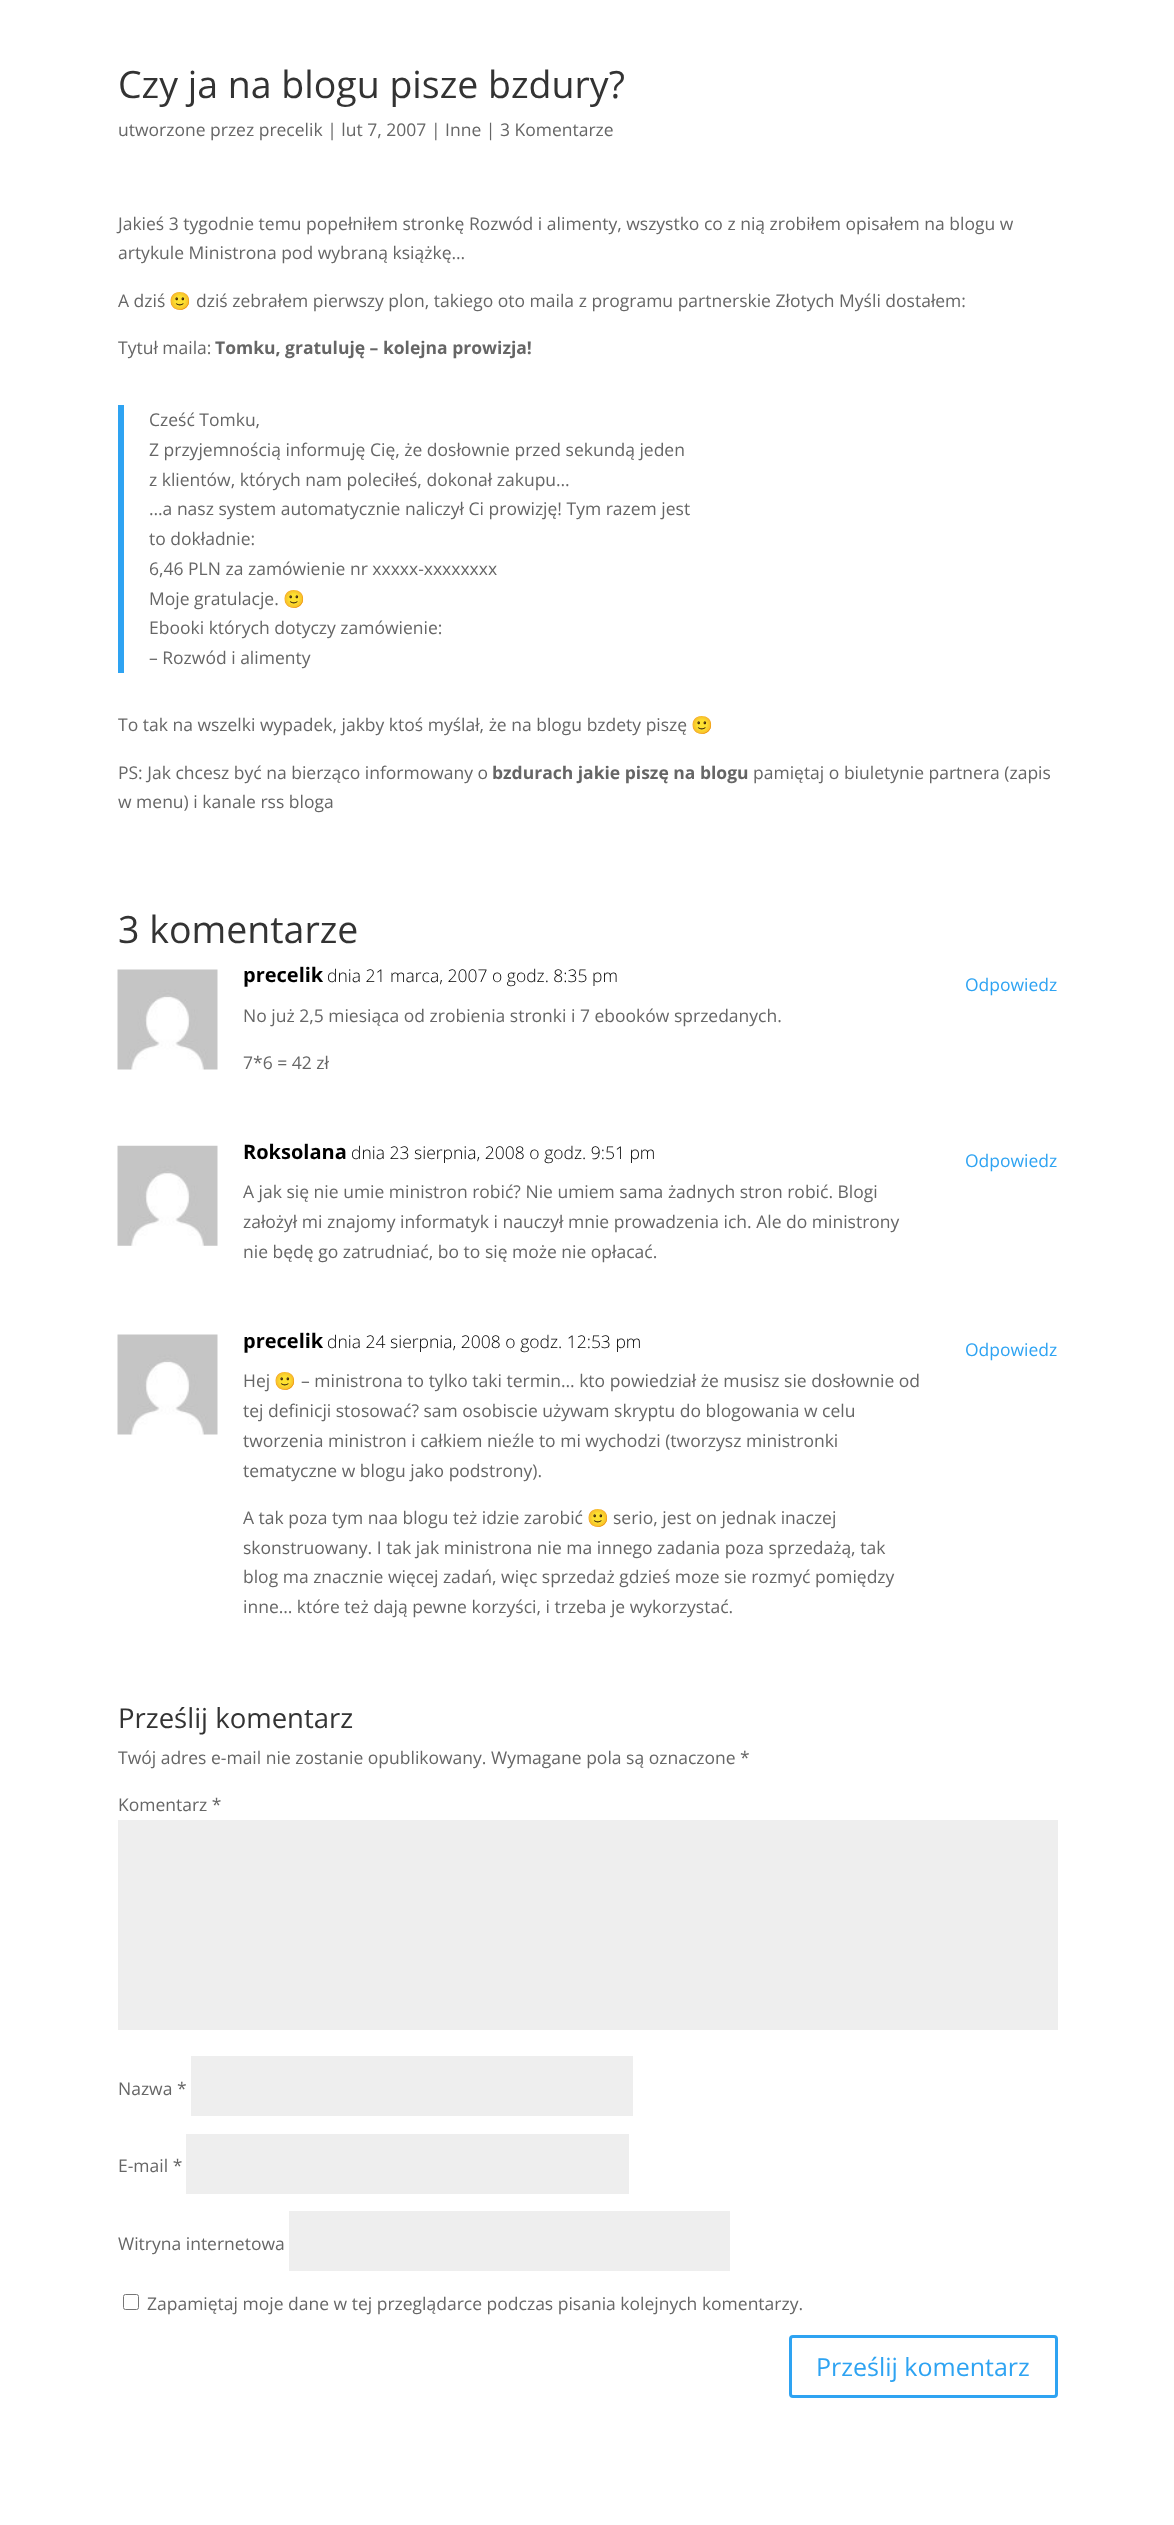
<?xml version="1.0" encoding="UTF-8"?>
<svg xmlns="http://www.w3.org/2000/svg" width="1174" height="2525">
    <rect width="100%" height="100%" fill="#FFFFFF"/>
    <text x="118" y="98" font-family="Open Sans" font-size="37.5" fill="#333333">Czy ja na blogu pisze bzdury?</text>
    <text x="118" y="136" font-family="Open Sans" font-size="17.5" fill="#666666">utworzone przez precelik | lut 7, 2007 | Inne | 3 Komentarze</text>
    <text font-family="Open Sans" font-size="17.5" fill="#666666">
        <tspan x="118" y="230">Jakieś 3 tygodnie temu popełniłem stronkę Rozwód i alimenty, wszystko co z nią zrobiłem opisałem na blogu w</tspan>
        <tspan x="118" y="259">artykule Ministrona pod wybraną książkę…</tspan>
    </text>
    <text x="118" y="307" font-family="Open Sans" font-size="17.5" fill="#666666">A dziś</text>
    <text x="169" y="307" font-family="Noto Color Emoji" font-size="17.5" fill="#666666">🙂</text>
    <text x="196" y="307" font-family="Open Sans" font-size="17.5" fill="#666666">dziś zebrałem pierwszy plon, takiego oto maila z programu partnerskie Złotych Myśli dostałem:</text>
    <text x="118" y="354" font-family="Open Sans" font-size="17.5" fill="#666666">Tytuł maila:</text>
    <text x="215" y="354" font-family="Open Sans" font-size="17.5" font-weight="700" fill="#666666">Tomku, gratuluję – kolejna prowizja!</text>
    <rect x="118" y="405" width="6" height="268" fill="#2EA3F2"/>
    <text font-family="Open Sans" font-size="17.5" fill="#666666">
        <tspan x="149" y="426">Cześć Tomku,</tspan>
        <tspan x="149" y="456">Z przyjemnością informuję Cię, że dosłownie przed sekundą jeden</tspan>
        <tspan x="149" y="486">z klientów, których nam poleciłeś, dokonał zakupu…</tspan>
        <tspan x="149" y="515">…a nasz system automatycznie naliczył Ci prowizję! Tym razem jest</tspan>
        <tspan x="149" y="545">to dokładnie:</tspan>
        <tspan x="149" y="575">6,46 PLN za zamówienie nr xxxxx-xxxxxxxx</tspan>
        <tspan x="149" y="605">Moje gratulacje.</tspan>
    </text>
    <text x="283" y="605" font-family="Noto Color Emoji" font-size="17.5" fill="#666666">🙂</text>
    <text font-family="Open Sans" font-size="17.5" fill="#666666">
        <tspan x="149" y="634">Ebooki których dotyczy zamówienie:</tspan>
        <tspan x="149" y="664">– Rozwód i alimenty</tspan>
    </text>
    <text x="118" y="731" font-family="Open Sans" font-size="17.5" fill="#666666">To tak na wszelki wypadek, jakby ktoś myślał, że na blogu bzdety piszę</text>
    <text x="691" y="731" font-family="Noto Color Emoji" font-size="17.5" fill="#666666">🙂</text>
    <text x="118" y="779" font-family="Open Sans" font-size="17.5" fill="#666666">PS: Jak chcesz być na bierząco informowany o</text>
    <text x="492" y="779" font-family="Open Sans" font-size="17.5" font-weight="700" fill="#666666">bzdurach jakie piszę na blogu</text>
    <text x="753" y="779" font-family="Open Sans" font-size="17.5" fill="#666666">pamiętaj o biuletynie partnera (zapis</text>
    <text x="118" y="808" font-family="Open Sans" font-size="17.5" fill="#666666">w menu) i kanale rss bloga</text>
    <text x="118" y="943" font-family="Open Sans" font-size="37.5" fill="#333333">3 komentarze</text>
    <image x="117" y="969" width="101" height="101" href="img_01.png"/>
    <text x="243" y="982" font-family="Open Sans" font-size="20" font-weight="700" fill="#000000">precelik</text>
    <text x="327" y="982" font-family="Open Sans" font-size="17.5" font-weight="300" fill="#000000">dnia 21 marca, 2007 o godz. 8:35 pm</text>
    <text x="965" y="991" font-family="Open Sans" font-size="17.5" fill="#2EA3F2">Odpowiedz</text>
    <text x="243" y="1022" font-family="Open Sans" font-size="17.5" fill="#666666">No już 2,5 miesiąca od zrobienia stronki i 7 ebooków sprzedanych.</text>
    <text x="243" y="1069" font-family="Open Sans" font-size="17.5" fill="#666666">7*6 = 42 zł</text>
    <image x="117" y="1145" width="101" height="101" href="img_02.png"/>
    <text x="243" y="1159" font-family="Open Sans" font-size="20" font-weight="700" fill="#000000">Roksolana</text>
    <text x="351" y="1159" font-family="Open Sans" font-size="17.5" font-weight="300" fill="#000000">dnia 23 sierpnia, 2008 o godz. 9:51 pm</text>
    <text x="965" y="1167" font-family="Open Sans" font-size="17.5" fill="#2EA3F2">Odpowiedz</text>
    <text font-family="Open Sans" font-size="17.5" fill="#666666">
        <tspan x="243" y="1198">A jak się nie umie ministron robić? Nie umiem sama żadnych stron robić. Blogi</tspan>
        <tspan x="243" y="1228">założył mi znajomy informatyk i nauczył mnie prowadzenia ich. Ale do ministrony</tspan>
        <tspan x="243" y="1258">nie będę go zatrudniać, bo to się może nie opłacać.</tspan>
    </text>
    <image x="117" y="1334" width="101" height="101" href="img_01.png"/>
    <text x="243" y="1348" font-family="Open Sans" font-size="20" font-weight="700" fill="#000000">precelik</text>
    <text x="327" y="1348" font-family="Open Sans" font-size="17.5" font-weight="300" fill="#000000">dnia 24 sierpnia, 2008 o godz. 12:53 pm</text>
    <text x="965" y="1356" font-family="Open Sans" font-size="17.5" fill="#2EA3F2">Odpowiedz</text>
    <text x="243" y="1387" font-family="Open Sans" font-size="17.5" fill="#666666">Hej</text>
    <text x="274" y="1387" font-family="Noto Color Emoji" font-size="17.5" fill="#666666">🙂</text>
    <text x="301" y="1387" font-family="Open Sans" font-size="17.5" fill="#666666">– ministrona to tylko taki termin… kto powiedział że musisz sie dosłownie od</text>
    <text font-family="Open Sans" font-size="17.5" fill="#666666">
        <tspan x="243" y="1417">tej definicji stosować? sam osobiscie używam skryptu do blogowania w celu</tspan>
        <tspan x="243" y="1447">tworzenia ministron i całkiem nieźle to mi wychodzi (tworzysz ministronki</tspan>
        <tspan x="243" y="1477">tematyczne w blogu jako podstrony).</tspan>
    </text>
    <text x="243" y="1524" font-family="Open Sans" font-size="17.5" fill="#666666">A tak poza tym naa blogu też idzie zarobić</text>
    <text x="587" y="1524" font-family="Noto Color Emoji" font-size="17.5" fill="#666666">🙂</text>
    <text x="613" y="1524" font-family="Open Sans" font-size="17.5" fill="#666666">serio, jest on jednak inaczej</text>
    <text font-family="Open Sans" font-size="17.5" fill="#666666">
        <tspan x="243" y="1554">skonstruowany. I tak jak ministrona nie ma innego zadania poza sprzedażą, tak</tspan>
        <tspan x="243" y="1583">blog ma znacznie więcej zadań, więc sprzedaż gdzieś moze sie rozmyć pomiędzy</tspan>
        <tspan x="243" y="1613">inne… które też dają pewne korzyści, i trzeba je wykorzystać.</tspan>
    </text>
    <text x="118" y="1728" font-family="Open Sans" font-size="27.5" fill="#333333">Prześlij komentarz</text>
    <text x="118" y="1764" font-family="Open Sans" font-size="17.5" fill="#666666">Twój adres e-mail nie zostanie opublikowany. Wymagane pola są oznaczone *</text>
    <text x="118" y="1811" font-family="Open Sans" font-size="17.5" fill="#666666">Komentarz *</text>
    <rect x="118" y="1820" width="940" height="210" fill="#EEEEEE"/>
    <text x="118" y="2095" font-family="Open Sans" font-size="17.5" fill="#666666">Nazwa *</text>
    <rect x="191" y="2056" width="442" height="60" fill="#EEEEEE"/>
    <text x="118" y="2172" font-family="Open Sans" font-size="17.5" fill="#666666">E-mail *</text>
    <rect x="186" y="2134" width="443" height="60" fill="#EEEEEE"/>
    <text x="118" y="2250" font-family="Open Sans" font-size="17.5" fill="#666666">Witryna internetowa</text>
    <rect x="289" y="2211" width="441" height="60" fill="#EEEEEE"/>
    <rect x="123.5" y="2294.5" width="15" height="15" rx="2" fill="none" stroke="#767676"/>
    <text x="147" y="2310" font-family="Open Sans" font-size="17.5" fill="#666666">Zapamiętaj moje dane w tej przeglądarce podczas pisania kolejnych komentarzy.</text>
    <rect x="790.5" y="2336.5" width="266" height="60" rx="2.5" fill="none" stroke="#2EA3F2" stroke-width="3"/>
    <text x="816" y="2376" font-family="Open Sans" font-size="25" fill="#2EA3F2">Prześlij komentarz</text>
</svg>
